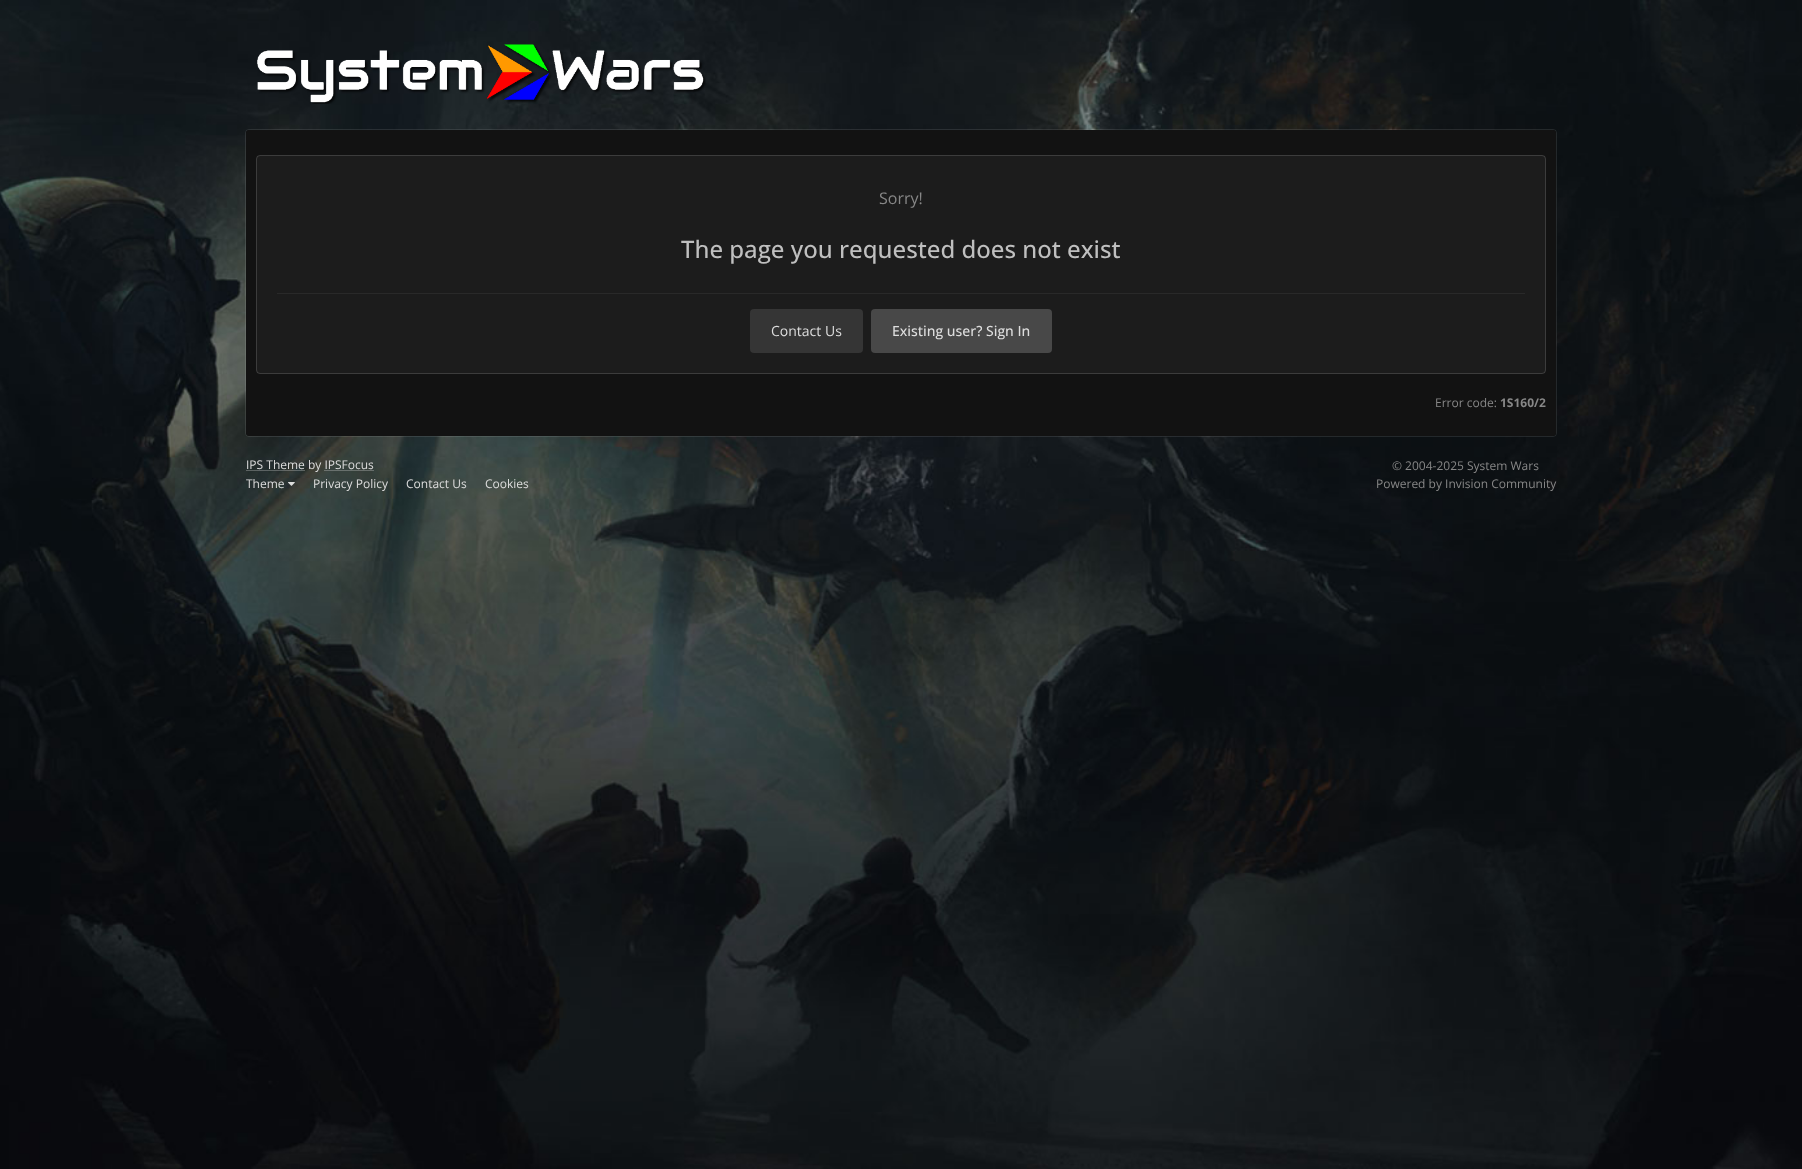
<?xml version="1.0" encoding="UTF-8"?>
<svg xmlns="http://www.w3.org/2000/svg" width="1802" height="1169">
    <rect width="100%" height="100%" fill="#FFFFFF"/>
    <image x="0" y="0" width="1802" height="1169" href="img_01.png"/>
    <image x="257" y="44" width="449" height="60" href="img_02.png"/>
    <rect x="245.5" y="129.5" width="1311" height="307" rx="3.5" fill="none" stroke="#FFFFFF" stroke-opacity="0.1"/>
    <rect x="246" y="130" width="1310" height="306" rx="3" fill="#121212"/>
    <rect x="256" y="155" width="1290" height="219" rx="4" fill="#1C1C1C"/>
    <rect x="256.5" y="155.5" width="1289" height="218" rx="3.5" fill="none" stroke="#BFBFBF" stroke-opacity="0.2"/>
    <text x="879" y="204" font-family="Open Sans" font-size="16" fill="#878787">Sorry!</text>
    <text x="681" y="258" font-family="Open Sans" font-size="24" font-weight="500" fill="#BFBFBF">The page you requested does not exist</text>
    <rect x="277" y="293" width="1248" height="1" fill="#292929"/>
    <rect x="750" y="309" width="113" height="44" rx="4" fill="#353535"/>
    <text x="771" y="336" font-family="Open Sans" font-size="14" fill="#DDDDDD">Contact Us</text>
    <rect x="871" y="309" width="181" height="44" rx="4" fill="#484848"/>
    <text x="892" y="336" font-family="Open Sans" font-size="14" font-weight="500" fill="#DDDDDD">Existing user? Sign In</text>
    <text x="1435" y="407" font-family="Open Sans" font-size="12" fill="#878787">Error code:</text>
    <text x="1500" y="407" font-family="Open Sans" font-size="12" font-weight="700" fill="#878787">1S160/2</text>
    <rect x="246" y="470" width="59" height="1" fill="#DDDDDD" fill-opacity="0.3"/>
    <text x="246" y="469" font-family="Open Sans" font-size="12" fill="#DDDDDD">IPS Theme by IPSFocus</text>
    <rect x="324" y="470" width="50" height="1" fill="#DDDDDD" fill-opacity="0.3"/>
    <text x="246" y="488" font-family="Open Sans" font-size="12" fill="#DDDDDD">Theme</text>
    <image x="288" y="482" width="7" height="4" href="img_03.png"/>
    <text x="313" y="488" font-family="Open Sans" font-size="12" fill="#DDDDDD">Privacy Policy</text>
    <text x="406" y="488" font-family="Open Sans" font-size="12" fill="#DDDDDD">Contact Us</text>
    <text x="485" y="488" font-family="Open Sans" font-size="12" fill="#DDDDDD">Cookies</text>
    <text x="1392" y="470" font-family="Open Sans" font-size="12" fill="#878787">© 2004-2025 System Wars</text>
    <text x="1376" y="488" font-family="Open Sans" font-size="12" fill="#878787">Powered by Invision Community</text>
</svg>
